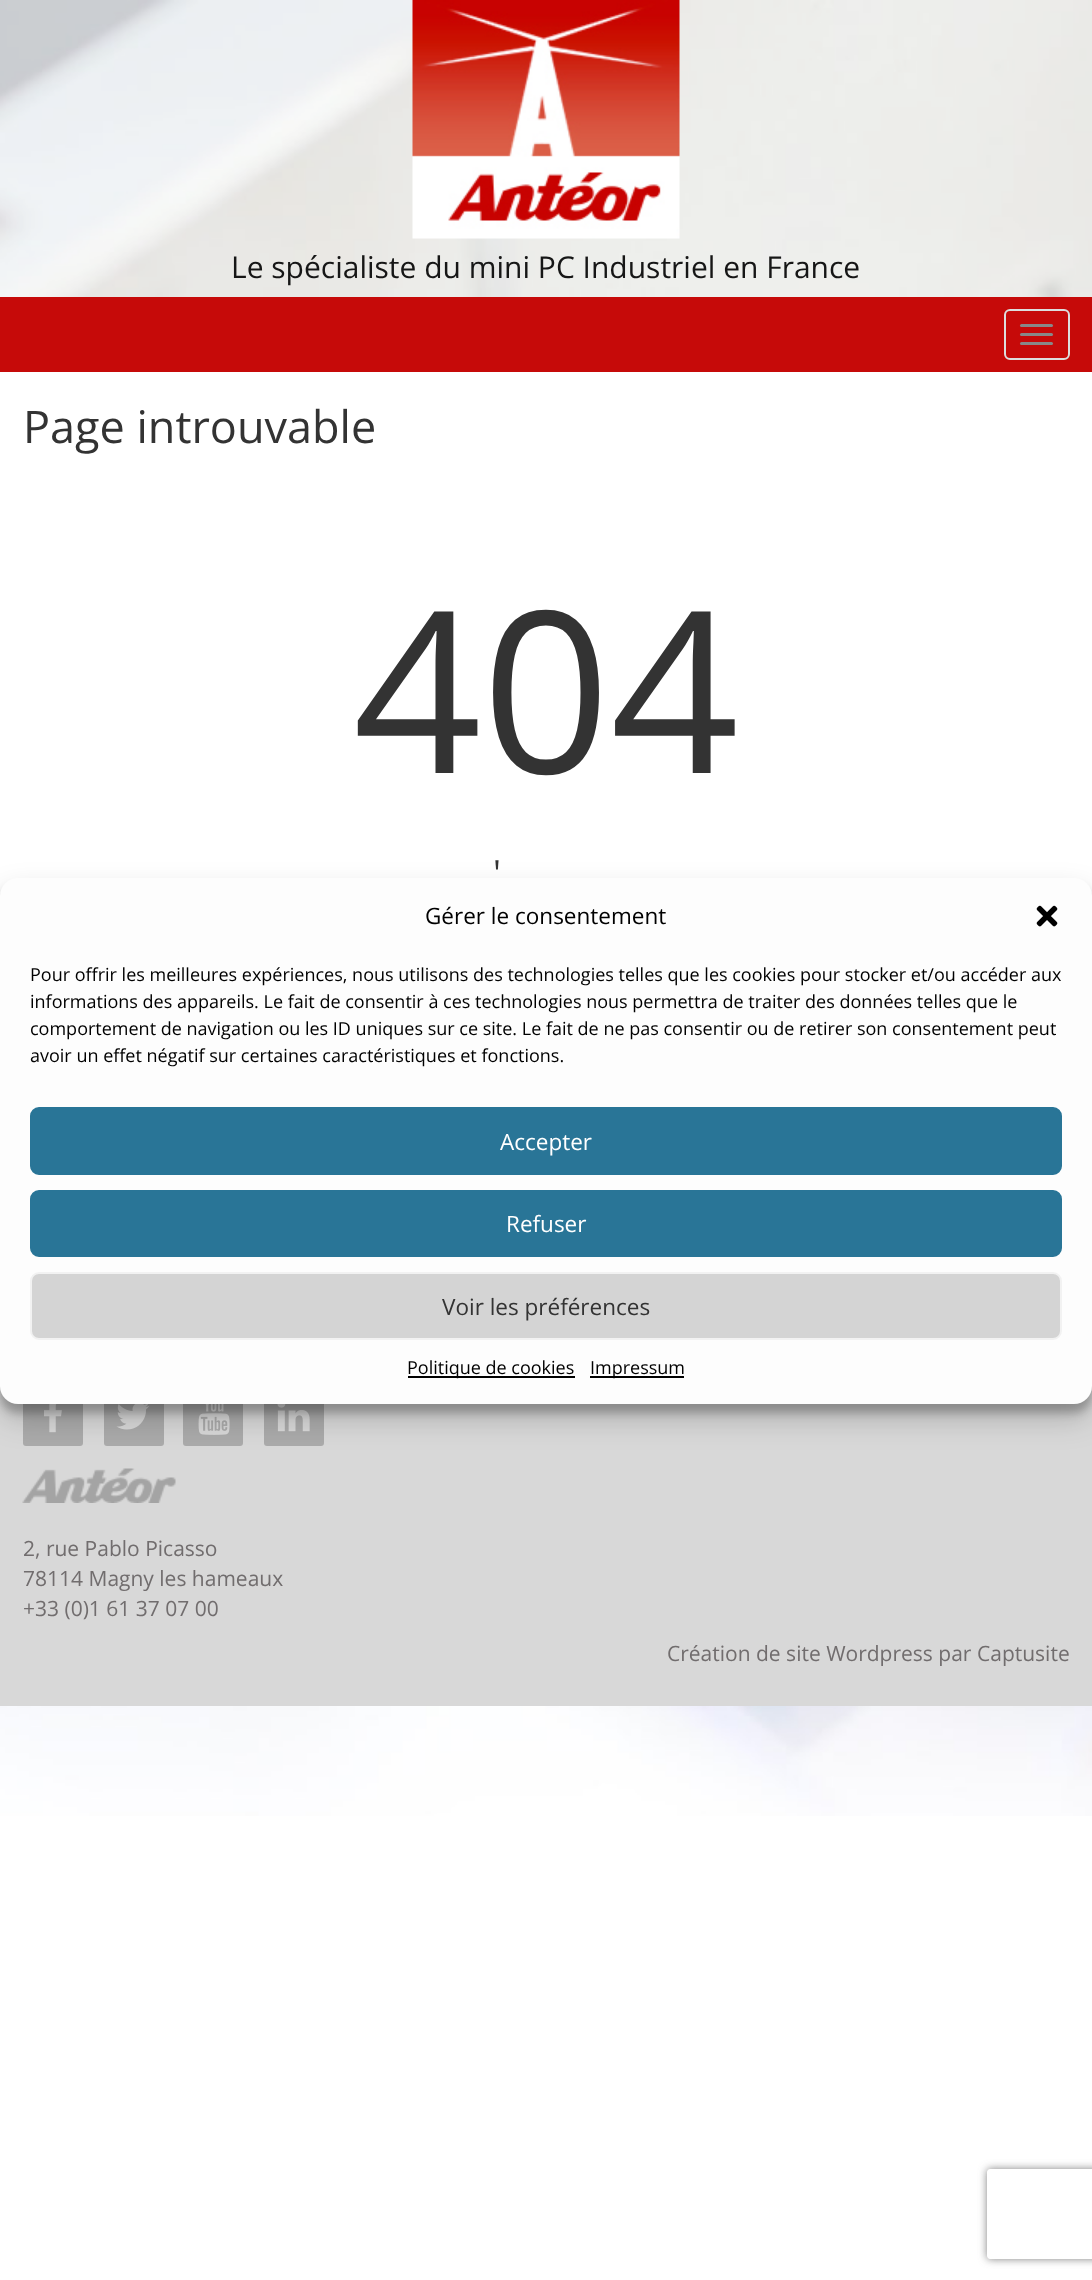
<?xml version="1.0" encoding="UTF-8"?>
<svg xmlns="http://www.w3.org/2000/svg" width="1092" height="2280">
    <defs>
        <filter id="blur1" x="-50%" y="-200%" width="200%" height="500%"><feGaussianBlur stdDeviation="4.5"/></filter>
        <filter id="blur2" x="-50%" y="-200%" width="200%" height="500%"><feGaussianBlur stdDeviation="15"/></filter>
        <clipPath id="clip1"><path d="M 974 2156 H 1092 V 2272 H 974 Z M 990 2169 H 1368 C 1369.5 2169 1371 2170.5 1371 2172 V 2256 C 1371 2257.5 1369.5 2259 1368 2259 H 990 C 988.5 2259 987 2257.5 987 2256 V 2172 C 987 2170.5 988.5 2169 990 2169 Z" clip-rule="evenodd"/></clipPath>
        <filter id="blur3" x="-50%" y="-200%" width="200%" height="500%"><feGaussianBlur stdDeviation="4"/></filter>
    </defs>
    <rect width="100%" height="100%" fill="#FFFFFF"/>
    <image x="0" y="0" width="1092" height="1816" href="img_01.png"/>
    <rect x="0" y="0" width="1092" height="297" fill="#FFFFFF" fill-opacity="0.4"/>
    <image x="412" y="0" width="268" height="239" href="img_02.png"/>
    <text x="231" y="278" font-family="Open Sans" font-size="30" fill="#161616">Le spécialiste du mini PC Industriel en France</text>
    <rect x="0" y="297" width="1092" height="75" fill="#C60A09"/>
    <rect x="1005" y="310" width="64" height="49" rx="5" fill="none" stroke="#DDDDDD" stroke-width="2"/>
    <rect x="1020" y="324" width="33" height="3" rx="1.5" fill="#888888"/>
    <rect x="1020" y="333" width="33" height="3" rx="1.5" fill="#888888"/>
    <rect x="1020" y="342" width="33" height="3" rx="1.5" fill="#888888"/>
    <rect x="0" y="372" width="1092" height="524" fill="#FFFFFF"/>
    <text x="23" y="443" font-family="Open Sans" font-size="45" fill="#333333">Page introuvable</text>
    <text x="353" y="773" font-family="Open Sans" font-size="225" fill="#333333">404</text>
    <text x="493" y="886" font-family="Open Sans" font-size="36" fill="#333333">'</text>
    <rect x="0" y="1386" width="1092" height="320" fill="#D8D8D8"/>
    <rect x="23" y="1386" width="60" height="60" rx="3" fill="#AAAAAA"/>
    <image x="44" y="1404" width="18" height="29" href="img_04.png"/>
    <rect x="104" y="1386" width="60" height="60" rx="3" fill="#AAAAAA"/>
    <image x="116" y="1404" width="33" height="26" href="img_05.png"/>
    <rect x="183" y="1386" width="60" height="60" rx="3" fill="#AAAAAA"/>
    <image x="198" y="1404" width="32" height="31" href="img_06.png"/>
    <rect x="264" y="1386" width="60" height="60" rx="3" fill="#AAAAAA"/>
    <image x="277" y="1404" width="33" height="28" href="img_07.png"/>
    <rect x="0" y="887" width="1092" height="526" rx="18" fill="#000000" fill-opacity="0.23" filter="url(#blur1)"/>
    <rect x="0" y="893" width="1092" height="526" rx="18" fill="#000000" fill-opacity="0.19" filter="url(#blur2)"/>
    <rect x="0" y="878" width="1092" height="526" rx="18" fill="#FDFDFD"/>
    <text x="425" y="924" font-family="Open Sans" font-size="22.5" fill="#000000">Gérer le consentement</text>
    <image x="1036" y="905" width="22" height="22" href="img_03.png"/>
    <text font-family="Open Sans" font-size="18" fill="#000000">
        <tspan x="30" y="981">Pour offrir les meilleures expériences, nous utilisons des technologies telles que les cookies pour stocker et/ou accéder aux</tspan>
        <tspan x="30" y="1008">informations des appareils. Le fait de consentir à ces technologies nous permettra de traiter des données telles que le</tspan>
        <tspan x="30" y="1035">comportement de navigation ou les ID uniques sur ce site. Le fait de ne pas consentir ou de retirer son consentement peut</tspan>
        <tspan x="30" y="1062">avoir un effet négatif sur certaines caractéristiques et fonctions.</tspan>
    </text>
    <rect x="31" y="1108" width="1030" height="66" rx="8" fill="#297597" stroke="#297597" stroke-width="2"/>
    <text x="500" y="1150" font-family="Open Sans" font-size="22.5" fill="#FFFFFF">Accepter</text>
    <rect x="31" y="1191" width="1030" height="65" rx="8" fill="#297597" stroke="#297597" stroke-width="2"/>
    <text x="506" y="1232" font-family="Open Sans" font-size="22.5" fill="#FFFFFF">Refuser</text>
    <rect x="31" y="1273" width="1030" height="66" rx="8" fill="#D4D4D4" stroke="#F2F2F2" stroke-width="2"/>
    <text x="442" y="1315" font-family="Open Sans" font-size="22.5" fill="#333333">Voir les préférences</text>
    <rect x="408" y="1376" width="167" height="2" fill="#000000"/>
    <text x="407" y="1374" font-family="Open Sans" font-size="18" fill="#000000">Politique de cookies</text>
    <rect x="590" y="1376" width="94" height="2" fill="#000000"/>
    <text x="590" y="1374" font-family="Open Sans" font-size="18" fill="#000000">Impressum</text>
    <image x="22" y="1468" width="154" height="35" href="img_08.png"/>
    <text font-family="Open Sans" font-size="21" fill="#716D6E">
        <tspan x="23" y="1556">2, rue Pablo Picasso</tspan>
        <tspan x="23" y="1586">78114 Magny les hameaux</tspan>
        <tspan x="23" y="1616">+33 (0)1 61 37 07 00</tspan>
    </text>
    <text x="667" y="1661" font-family="Open Sans" font-size="21" fill="#716D6E">Création de site Wordpress par</text>
    <text x="977" y="1661" font-family="Open Sans" font-size="21" fill="#716D6E">Captusite</text>
    <g clip-path="url(#clip1)">
        <rect x="987" y="2169" width="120" height="90" rx="3" fill="#808080" filter="url(#blur3)"/>
    </g>
</svg>
